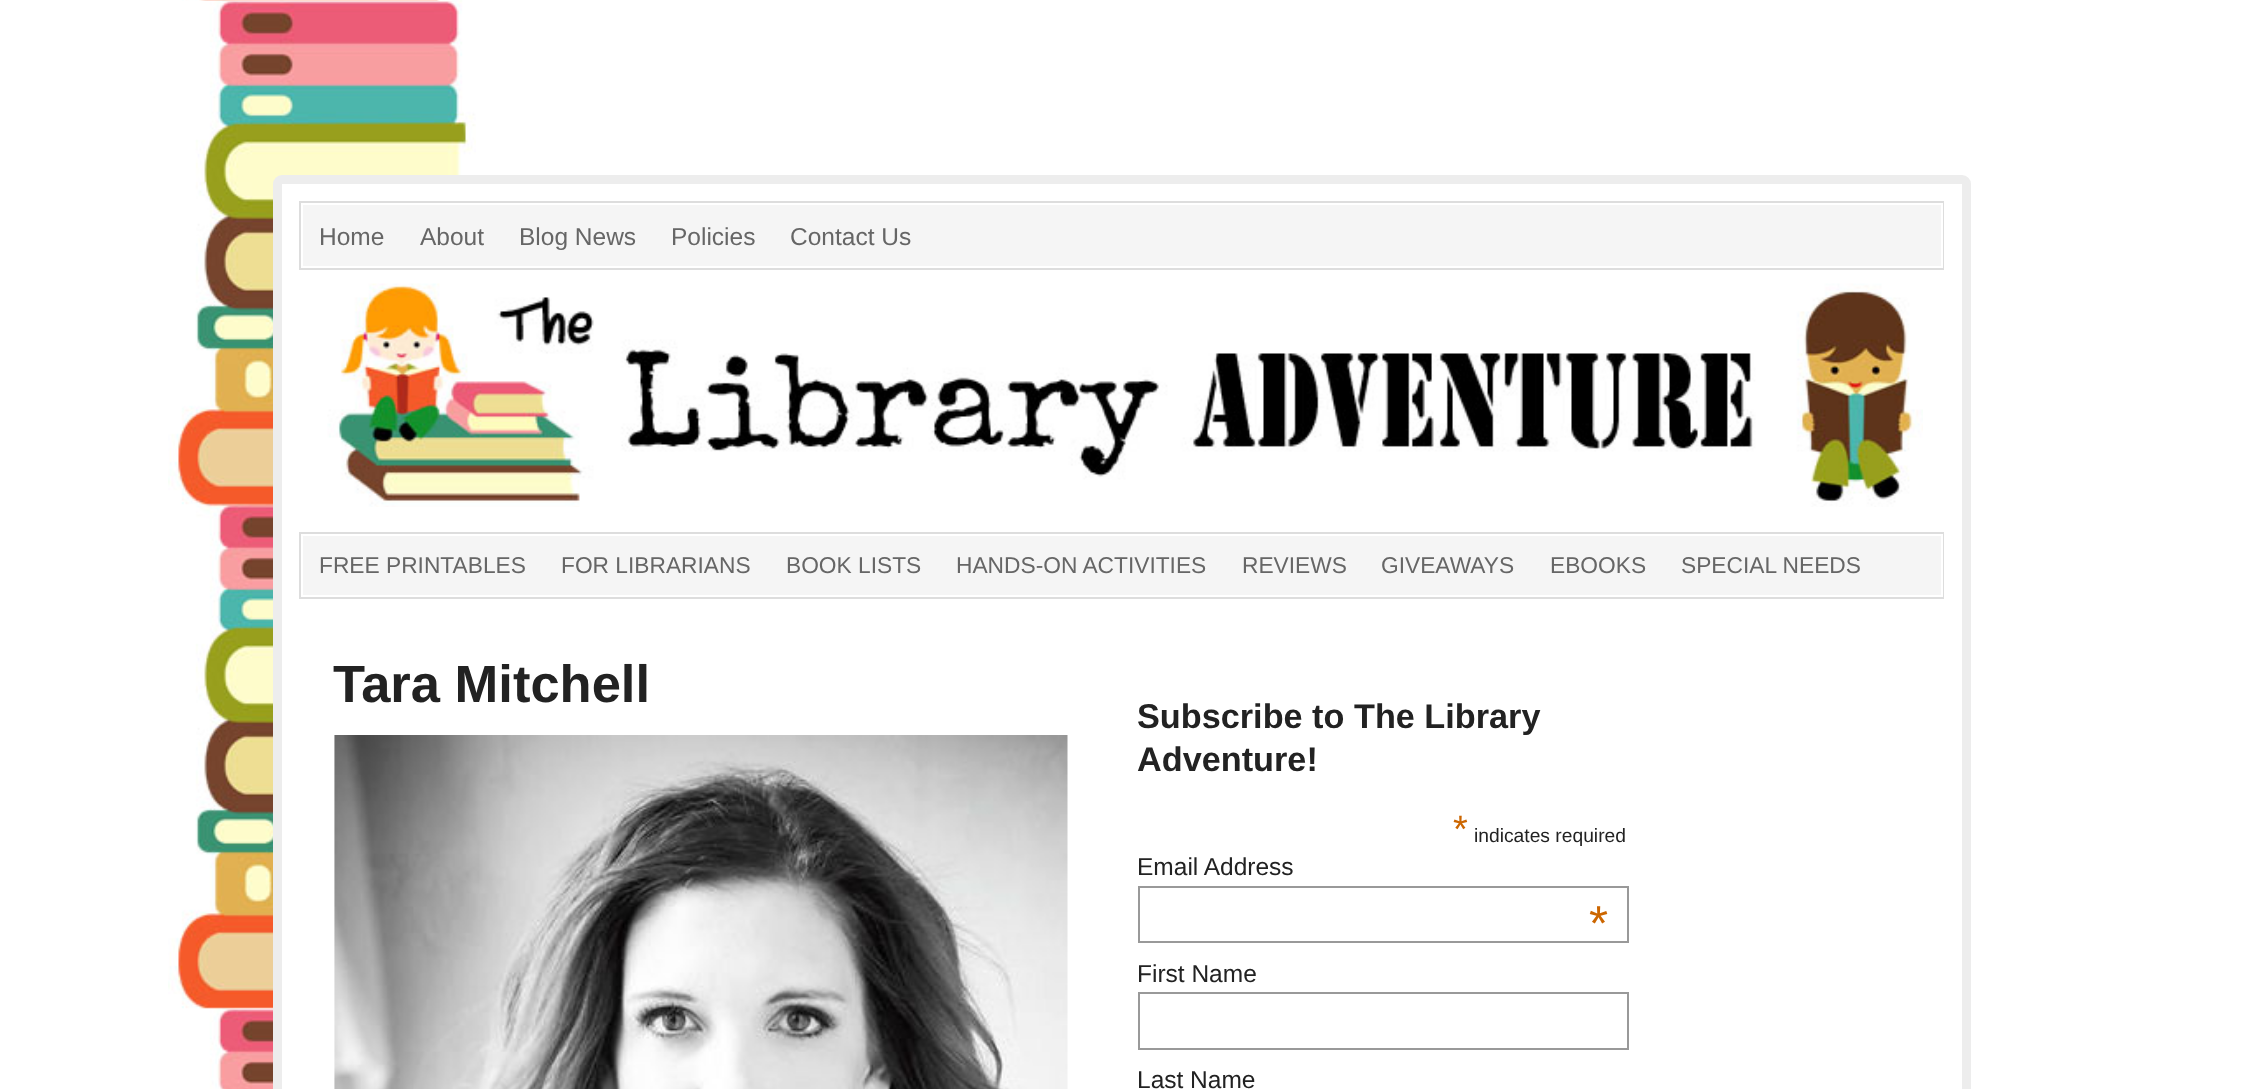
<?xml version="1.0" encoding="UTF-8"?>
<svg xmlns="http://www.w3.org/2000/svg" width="2241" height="1089">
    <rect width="100%" height="100%" fill="#FFFFFF"/>
    <image x="168" y="0" width="308" height="1089" href="img_01.png"/>
    <rect x="277.5" y="179.5" width="1689" height="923" rx="4.5" fill="#FFFFFF" stroke="#EDEDED" stroke-width="9"/>
    <rect x="303" y="205" width="1638" height="61" fill="#F5F5F5"/>
    <rect x="300" y="202" width="1643" height="67" fill="none" stroke="#DDDDDD" stroke-width="2"/>
    <rect x="302" y="204" width="1640" height="63" fill="none" stroke="#FFFFFF" stroke-width="2"/>
    <text x="319" y="245" font-family="Liberation Sans" font-size="24.5" fill="#666666">Home</text>
    <text x="420" y="245" font-family="Liberation Sans" font-size="24.5" fill="#666666">About</text>
    <text x="519" y="245" font-family="Liberation Sans" font-size="24.5" fill="#666666">Blog News</text>
    <text x="671" y="245" font-family="Liberation Sans" font-size="24.5" fill="#666666">Policies</text>
    <text x="790" y="245" font-family="Liberation Sans" font-size="24.5" fill="#666666">Contact Us</text>
    <image x="327" y="283" width="1596" height="224" href="img_02.png"/>
    <rect x="303" y="536" width="1638" height="59" fill="#F5F5F5"/>
    <rect x="300" y="533" width="1643" height="65" fill="none" stroke="#DDDDDD" stroke-width="2"/>
    <rect x="302" y="535" width="1640" height="61" fill="none" stroke="#FFFFFF" stroke-width="2"/>
    <text x="319" y="573" font-family="Liberation Sans" font-size="22.75" fill="#666666">FREE PRINTABLES</text>
    <text x="561" y="573" font-family="Liberation Sans" font-size="22.75" fill="#666666">FOR LIBRARIANS</text>
    <text x="786" y="573" font-family="Liberation Sans" font-size="22.75" fill="#666666">BOOK LISTS</text>
    <text x="956" y="573" font-family="Liberation Sans" font-size="22.75" fill="#666666">HANDS-ON ACTIVITIES</text>
    <text x="1242" y="573" font-family="Liberation Sans" font-size="22.75" fill="#666666">REVIEWS</text>
    <text x="1381" y="573" font-family="Liberation Sans" font-size="22.75" fill="#666666">GIVEAWAYS</text>
    <text x="1550" y="573" font-family="Liberation Sans" font-size="22.75" fill="#666666">EBOOKS</text>
    <text x="1681" y="573" font-family="Liberation Sans" font-size="22.75" fill="#666666">SPECIAL NEEDS</text>
    <text x="333" y="702" font-family="Liberation Sans" font-size="52.5" font-weight="700" fill="#222222">Tara Mitchell</text>
    <image x="334" y="735" width="734" height="354" href="img_03.png"/>
    <text font-family="Liberation Sans" font-size="34.25" font-weight="700" fill="#222222">
        <tspan x="1137" y="728">Subscribe to The Library</tspan>
        <tspan x="1137" y="771">Adventure!</tspan>
    </text>
    <text x="1453" y="842" font-family="Liberation Sans" font-size="38" fill="#CC6600">*</text>
    <text x="1474" y="842" font-family="Liberation Sans" font-size="19.25" fill="#222222">indicates required</text>
    <text x="1137" y="875" font-family="Liberation Sans" font-size="24.5" fill="#222222">Email Address</text>
    <rect x="1139" y="887" width="489" height="55" fill="none" stroke="#999999" stroke-width="2"/>
    <text x="1589" y="940" font-family="Liberation Sans" font-size="49" fill="#CC6600">*</text>
    <text x="1137" y="982" font-family="Liberation Sans" font-size="24.5" fill="#222222">First Name</text>
    <rect x="1139" y="993" width="489" height="56" fill="none" stroke="#999999" stroke-width="2"/>
    <text x="1137" y="1088" font-family="Liberation Sans" font-size="24.5" fill="#222222">Last Name</text>
</svg>
